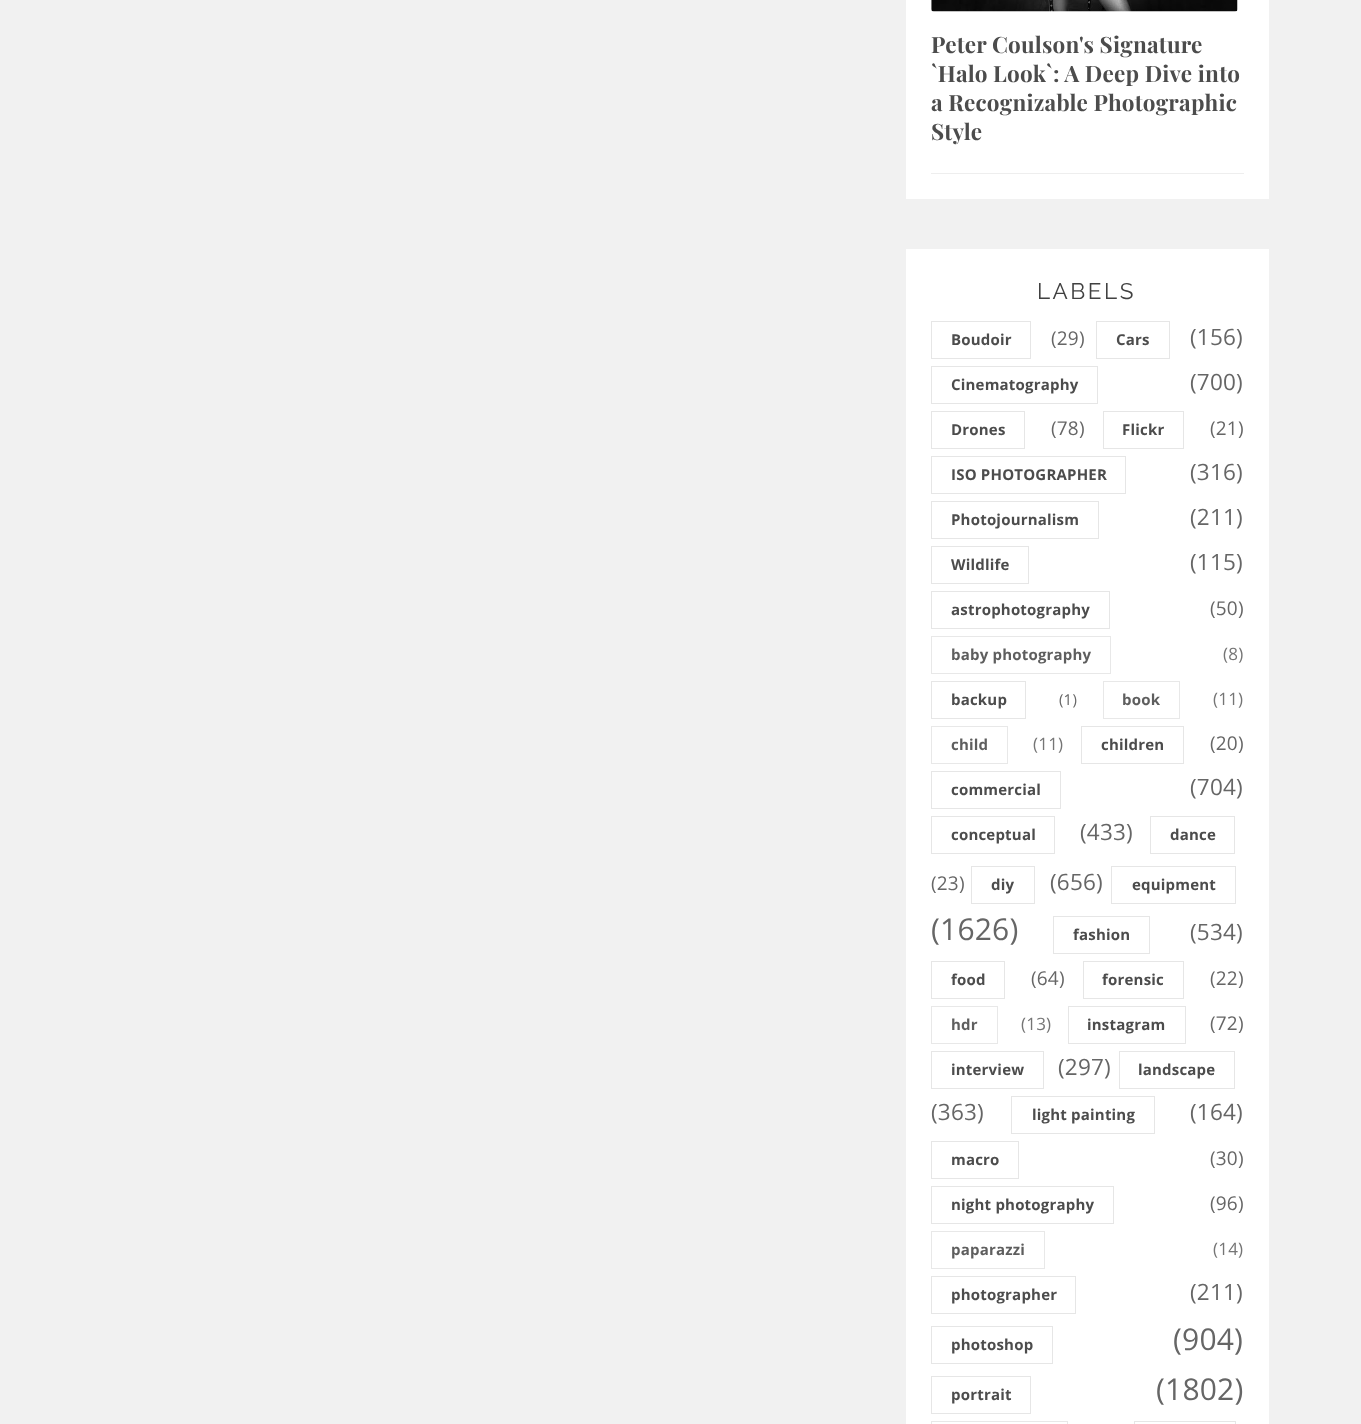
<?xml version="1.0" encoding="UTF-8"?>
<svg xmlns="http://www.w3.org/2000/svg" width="1361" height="1424">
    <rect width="100%" height="100%" fill="#F1F1F1"/>
    <rect x="906" y="0" width="363" height="199" fill="#FFFFFF"/>
    <rect x="931" y="173" width="313" height="1" fill="#EEEEEE"/>
    <image x="931" y="0" width="307" height="12" href="img_01.png"/>
    <text font-family="Playfair Display" font-size="22.5" font-weight="700" letter-spacing="0.2" fill="#4C4C4C">
        <tspan x="931" y="53">Peter Coulson's Signature</tspan>
        <tspan x="931" y="82">`Halo Look`: A Deep Dive into</tspan>
        <tspan x="931" y="111">a Recognizable Photographic</tspan>
        <tspan x="931" y="140">Style</tspan>
    </text>
    <rect x="906" y="249" width="363" height="1175" fill="#FFFFFF"/>
    <text x="1037" y="299" font-family="Raleway" font-size="22.5" letter-spacing="2.5" fill="#414141">LABELS</text>
    <rect x="931.5" y="321.5" width="99" height="37" fill="none" stroke="#E6E6E6"/>
    <text x="951" y="345" font-family="Open Sans" font-size="15" font-weight="700" letter-spacing="0.2" fill="#4C4C4C">Boudoir</text>
    <text x="1051" y="345" font-family="Open Sans" font-size="19" letter-spacing="0.2" fill="#666666">(29)</text>
    <rect x="1096.5" y="321.5" width="73" height="37" fill="none" stroke="#E6E6E6"/>
    <text x="1116" y="345" font-family="Open Sans" font-size="15" font-weight="700" letter-spacing="0.2" fill="#4C4C4C">Cars</text>
    <text x="1190" y="345" font-family="Open Sans" font-size="22.5" letter-spacing="0.2" fill="#666666">(156)</text>
    <rect x="931.5" y="366.5" width="166" height="37" fill="none" stroke="#E6E6E6"/>
    <text x="951" y="390" font-family="Open Sans" font-size="15" font-weight="700" letter-spacing="0.2" fill="#4C4C4C">Cinematography</text>
    <text x="1190" y="390" font-family="Open Sans" font-size="22.5" letter-spacing="0.2" fill="#666666">(700)</text>
    <rect x="931.5" y="411.5" width="93" height="37" fill="none" stroke="#E6E6E6"/>
    <text x="951" y="435" font-family="Open Sans" font-size="15" font-weight="700" letter-spacing="0.2" fill="#4C4C4C">Drones</text>
    <text x="1051" y="435" font-family="Open Sans" font-size="19" letter-spacing="0.2" fill="#666666">(78)</text>
    <rect x="1103.5" y="411.5" width="80" height="37" fill="none" stroke="#E6E6E6"/>
    <text x="1122" y="435" font-family="Open Sans" font-size="15" font-weight="700" letter-spacing="0.2" fill="#4C4C4C">Flickr</text>
    <text x="1210" y="435" font-family="Open Sans" font-size="19" letter-spacing="0.2" fill="#666666">(21)</text>
    <rect x="931.5" y="456.5" width="194" height="37" fill="none" stroke="#E6E6E6"/>
    <text x="951" y="480" font-family="Open Sans" font-size="15" font-weight="700" letter-spacing="0.2" fill="#4C4C4C">ISO PHOTOGRAPHER</text>
    <text x="1190" y="480" font-family="Open Sans" font-size="22.5" letter-spacing="0.2" fill="#666666">(316)</text>
    <rect x="931.5" y="501.5" width="167" height="37" fill="none" stroke="#E6E6E6"/>
    <text x="951" y="525" font-family="Open Sans" font-size="15" font-weight="700" letter-spacing="0.2" fill="#4C4C4C">Photojournalism</text>
    <text x="1190" y="525" font-family="Open Sans" font-size="22.5" letter-spacing="0.2" fill="#666666">(211)</text>
    <rect x="931.5" y="546.5" width="97" height="37" fill="none" stroke="#E6E6E6"/>
    <text x="951" y="570" font-family="Open Sans" font-size="15" font-weight="700" letter-spacing="0.2" fill="#4C4C4C">Wildlife</text>
    <text x="1190" y="570" font-family="Open Sans" font-size="22.5" letter-spacing="0.2" fill="#666666">(115)</text>
    <rect x="931.5" y="591.5" width="178" height="37" fill="none" stroke="#E6E6E6"/>
    <text x="951" y="615" font-family="Open Sans" font-size="15" font-weight="700" letter-spacing="0.2" fill="#4C4C4C">astrophotography</text>
    <text x="1210" y="615" font-family="Open Sans" font-size="19" letter-spacing="0.2" fill="#666666">(50)</text>
    <rect x="931.5" y="636.5" width="179" height="37" fill="none" stroke="#E8E8E8"/>
    <text x="951" y="660" font-family="Open Sans" font-size="15" font-weight="700" letter-spacing="0.2" fill="#5E5E5E">baby photography</text>
    <text x="1223" y="660" font-family="Open Sans" font-size="17" letter-spacing="0.2" fill="#757575">(8)</text>
    <rect x="931.5" y="681.5" width="94" height="37" fill="none" stroke="#E6E6E6"/>
    <text x="951" y="705" font-family="Open Sans" font-size="15" font-weight="700" letter-spacing="0.2" fill="#4C4C4C">backup</text>
    <text x="1059" y="705" font-family="Open Sans" font-size="15" letter-spacing="0.2" fill="#666666">(1)</text>
    <rect x="1103.5" y="681.5" width="76" height="37" fill="none" stroke="#E8E8E8"/>
    <text x="1122" y="705" font-family="Open Sans" font-size="15" font-weight="700" letter-spacing="0.2" fill="#5E5E5E">book</text>
    <text x="1213" y="705" font-family="Open Sans" font-size="17" letter-spacing="0.2" fill="#757575">(11)</text>
    <rect x="931.5" y="726.5" width="76" height="37" fill="none" stroke="#E8E8E8"/>
    <text x="951" y="750" font-family="Open Sans" font-size="15" font-weight="700" letter-spacing="0.2" fill="#5E5E5E">child</text>
    <text x="1033" y="750" font-family="Open Sans" font-size="17" letter-spacing="0.2" fill="#757575">(11)</text>
    <rect x="1081.5" y="726.5" width="102" height="37" fill="none" stroke="#E6E6E6"/>
    <text x="1101" y="750" font-family="Open Sans" font-size="15" font-weight="700" letter-spacing="0.2" fill="#4C4C4C">children</text>
    <text x="1210" y="750" font-family="Open Sans" font-size="19" letter-spacing="0.2" fill="#666666">(20)</text>
    <rect x="931.5" y="771.5" width="129" height="37" fill="none" stroke="#E6E6E6"/>
    <text x="951" y="795" font-family="Open Sans" font-size="15" font-weight="700" letter-spacing="0.2" fill="#4C4C4C">commercial</text>
    <text x="1190" y="795" font-family="Open Sans" font-size="22.5" letter-spacing="0.2" fill="#666666">(704)</text>
    <rect x="931.5" y="816.5" width="123" height="37" fill="none" stroke="#E6E6E6"/>
    <text x="951" y="840" font-family="Open Sans" font-size="15" font-weight="700" letter-spacing="0.2" fill="#4C4C4C">conceptual</text>
    <text x="1080" y="840" font-family="Open Sans" font-size="22.5" letter-spacing="0.2" fill="#666666">(433)</text>
    <rect x="1150.5" y="816.5" width="84" height="37" fill="none" stroke="#E6E6E6"/>
    <text x="1170" y="840" font-family="Open Sans" font-size="15" font-weight="700" letter-spacing="0.2" fill="#4C4C4C">dance</text>
    <text x="931" y="890" font-family="Open Sans" font-size="19" letter-spacing="0.2" fill="#666666">(23)</text>
    <rect x="971.5" y="866.5" width="63" height="37" fill="none" stroke="#E6E6E6"/>
    <text x="991" y="890" font-family="Open Sans" font-size="15" font-weight="700" letter-spacing="0.2" fill="#4C4C4C">diy</text>
    <text x="1050" y="890" font-family="Open Sans" font-size="22.5" letter-spacing="0.2" fill="#666666">(656)</text>
    <rect x="1111.5" y="866.5" width="124" height="37" fill="none" stroke="#E6E6E6"/>
    <text x="1132" y="890" font-family="Open Sans" font-size="15" font-weight="700" letter-spacing="0.2" fill="#4C4C4C">equipment</text>
    <text x="931" y="940" font-family="Open Sans" font-size="30" letter-spacing="0.2" fill="#666666">(1626)</text>
    <rect x="1053.5" y="916.5" width="96" height="37" fill="none" stroke="#E6E6E6"/>
    <text x="1073" y="940" font-family="Open Sans" font-size="15" font-weight="700" letter-spacing="0.2" fill="#4C4C4C">fashion</text>
    <text x="1190" y="940" font-family="Open Sans" font-size="22.5" letter-spacing="0.2" fill="#666666">(534)</text>
    <rect x="931.5" y="961.5" width="73" height="37" fill="none" stroke="#E6E6E6"/>
    <text x="951" y="985" font-family="Open Sans" font-size="15" font-weight="700" letter-spacing="0.2" fill="#4C4C4C">food</text>
    <text x="1031" y="985" font-family="Open Sans" font-size="19" letter-spacing="0.2" fill="#666666">(64)</text>
    <rect x="1083.5" y="961.5" width="100" height="37" fill="none" stroke="#E6E6E6"/>
    <text x="1102" y="985" font-family="Open Sans" font-size="15" font-weight="700" letter-spacing="0.2" fill="#4C4C4C">forensic</text>
    <text x="1210" y="985" font-family="Open Sans" font-size="19" letter-spacing="0.2" fill="#666666">(22)</text>
    <rect x="931.5" y="1006.5" width="66" height="37" fill="none" stroke="#E8E8E8"/>
    <text x="951" y="1030" font-family="Open Sans" font-size="15" font-weight="700" letter-spacing="0.2" fill="#5E5E5E">hdr</text>
    <text x="1021" y="1030" font-family="Open Sans" font-size="17" letter-spacing="0.2" fill="#757575">(13)</text>
    <rect x="1068.5" y="1006.5" width="117" height="37" fill="none" stroke="#E6E6E6"/>
    <text x="1087" y="1030" font-family="Open Sans" font-size="15" font-weight="700" letter-spacing="0.2" fill="#4C4C4C">instagram</text>
    <text x="1210" y="1030" font-family="Open Sans" font-size="19" letter-spacing="0.2" fill="#666666">(72)</text>
    <rect x="931.5" y="1051.5" width="112" height="37" fill="none" stroke="#E6E6E6"/>
    <text x="951" y="1075" font-family="Open Sans" font-size="15" font-weight="700" letter-spacing="0.2" fill="#4C4C4C">interview</text>
    <text x="1058" y="1075" font-family="Open Sans" font-size="22.5" letter-spacing="0.2" fill="#666666">(297)</text>
    <rect x="1119.5" y="1051.5" width="115" height="37" fill="none" stroke="#E6E6E6"/>
    <text x="1138" y="1075" font-family="Open Sans" font-size="15" font-weight="700" letter-spacing="0.2" fill="#4C4C4C">landscape</text>
    <text x="931" y="1120" font-family="Open Sans" font-size="22.5" letter-spacing="0.2" fill="#666666">(363)</text>
    <rect x="1011.5" y="1096.5" width="143" height="37" fill="none" stroke="#E6E6E6"/>
    <text x="1032" y="1120" font-family="Open Sans" font-size="15" font-weight="700" letter-spacing="0.2" fill="#4C4C4C">light painting</text>
    <text x="1190" y="1120" font-family="Open Sans" font-size="22.5" letter-spacing="0.2" fill="#666666">(164)</text>
    <rect x="931.5" y="1141.5" width="87" height="37" fill="none" stroke="#E6E6E6"/>
    <text x="951" y="1165" font-family="Open Sans" font-size="15" font-weight="700" letter-spacing="0.2" fill="#4C4C4C">macro</text>
    <text x="1210" y="1165" font-family="Open Sans" font-size="19" letter-spacing="0.2" fill="#666666">(30)</text>
    <rect x="931.5" y="1186.5" width="182" height="37" fill="none" stroke="#E6E6E6"/>
    <text x="951" y="1210" font-family="Open Sans" font-size="15" font-weight="700" letter-spacing="0.2" fill="#4C4C4C">night photography</text>
    <text x="1210" y="1210" font-family="Open Sans" font-size="19" letter-spacing="0.2" fill="#666666">(96)</text>
    <rect x="931.5" y="1231.5" width="113" height="37" fill="none" stroke="#E8E8E8"/>
    <text x="951" y="1255" font-family="Open Sans" font-size="15" font-weight="700" letter-spacing="0.2" fill="#5E5E5E">paparazzi</text>
    <text x="1213" y="1255" font-family="Open Sans" font-size="17" letter-spacing="0.2" fill="#757575">(14)</text>
    <rect x="931.5" y="1276.5" width="144" height="37" fill="none" stroke="#E6E6E6"/>
    <text x="951" y="1300" font-family="Open Sans" font-size="15" font-weight="700" letter-spacing="0.2" fill="#4C4C4C">photographer</text>
    <text x="1190" y="1300" font-family="Open Sans" font-size="22.5" letter-spacing="0.2" fill="#666666">(211)</text>
    <rect x="931.5" y="1326.5" width="121" height="37" fill="none" stroke="#E6E6E6"/>
    <text x="951" y="1350" font-family="Open Sans" font-size="15" font-weight="700" letter-spacing="0.2" fill="#4C4C4C">photoshop</text>
    <text x="1173" y="1350" font-family="Open Sans" font-size="30" letter-spacing="0.2" fill="#666666">(904)</text>
    <rect x="931.5" y="1376.5" width="99" height="37" fill="none" stroke="#E6E6E6"/>
    <text x="951" y="1400" font-family="Open Sans" font-size="15" font-weight="700" letter-spacing="0.2" fill="#4C4C4C">portrait</text>
    <text x="1156" y="1400" font-family="Open Sans" font-size="30" letter-spacing="0.2" fill="#666666">(1802)</text>
    <rect x="931.5" y="1421.5" width="136" height="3" fill="none" stroke="#E8E8E8"/>
    <rect x="1134.5" y="1421.5" width="101" height="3" fill="none" stroke="#E6E6E6"/>
</svg>
